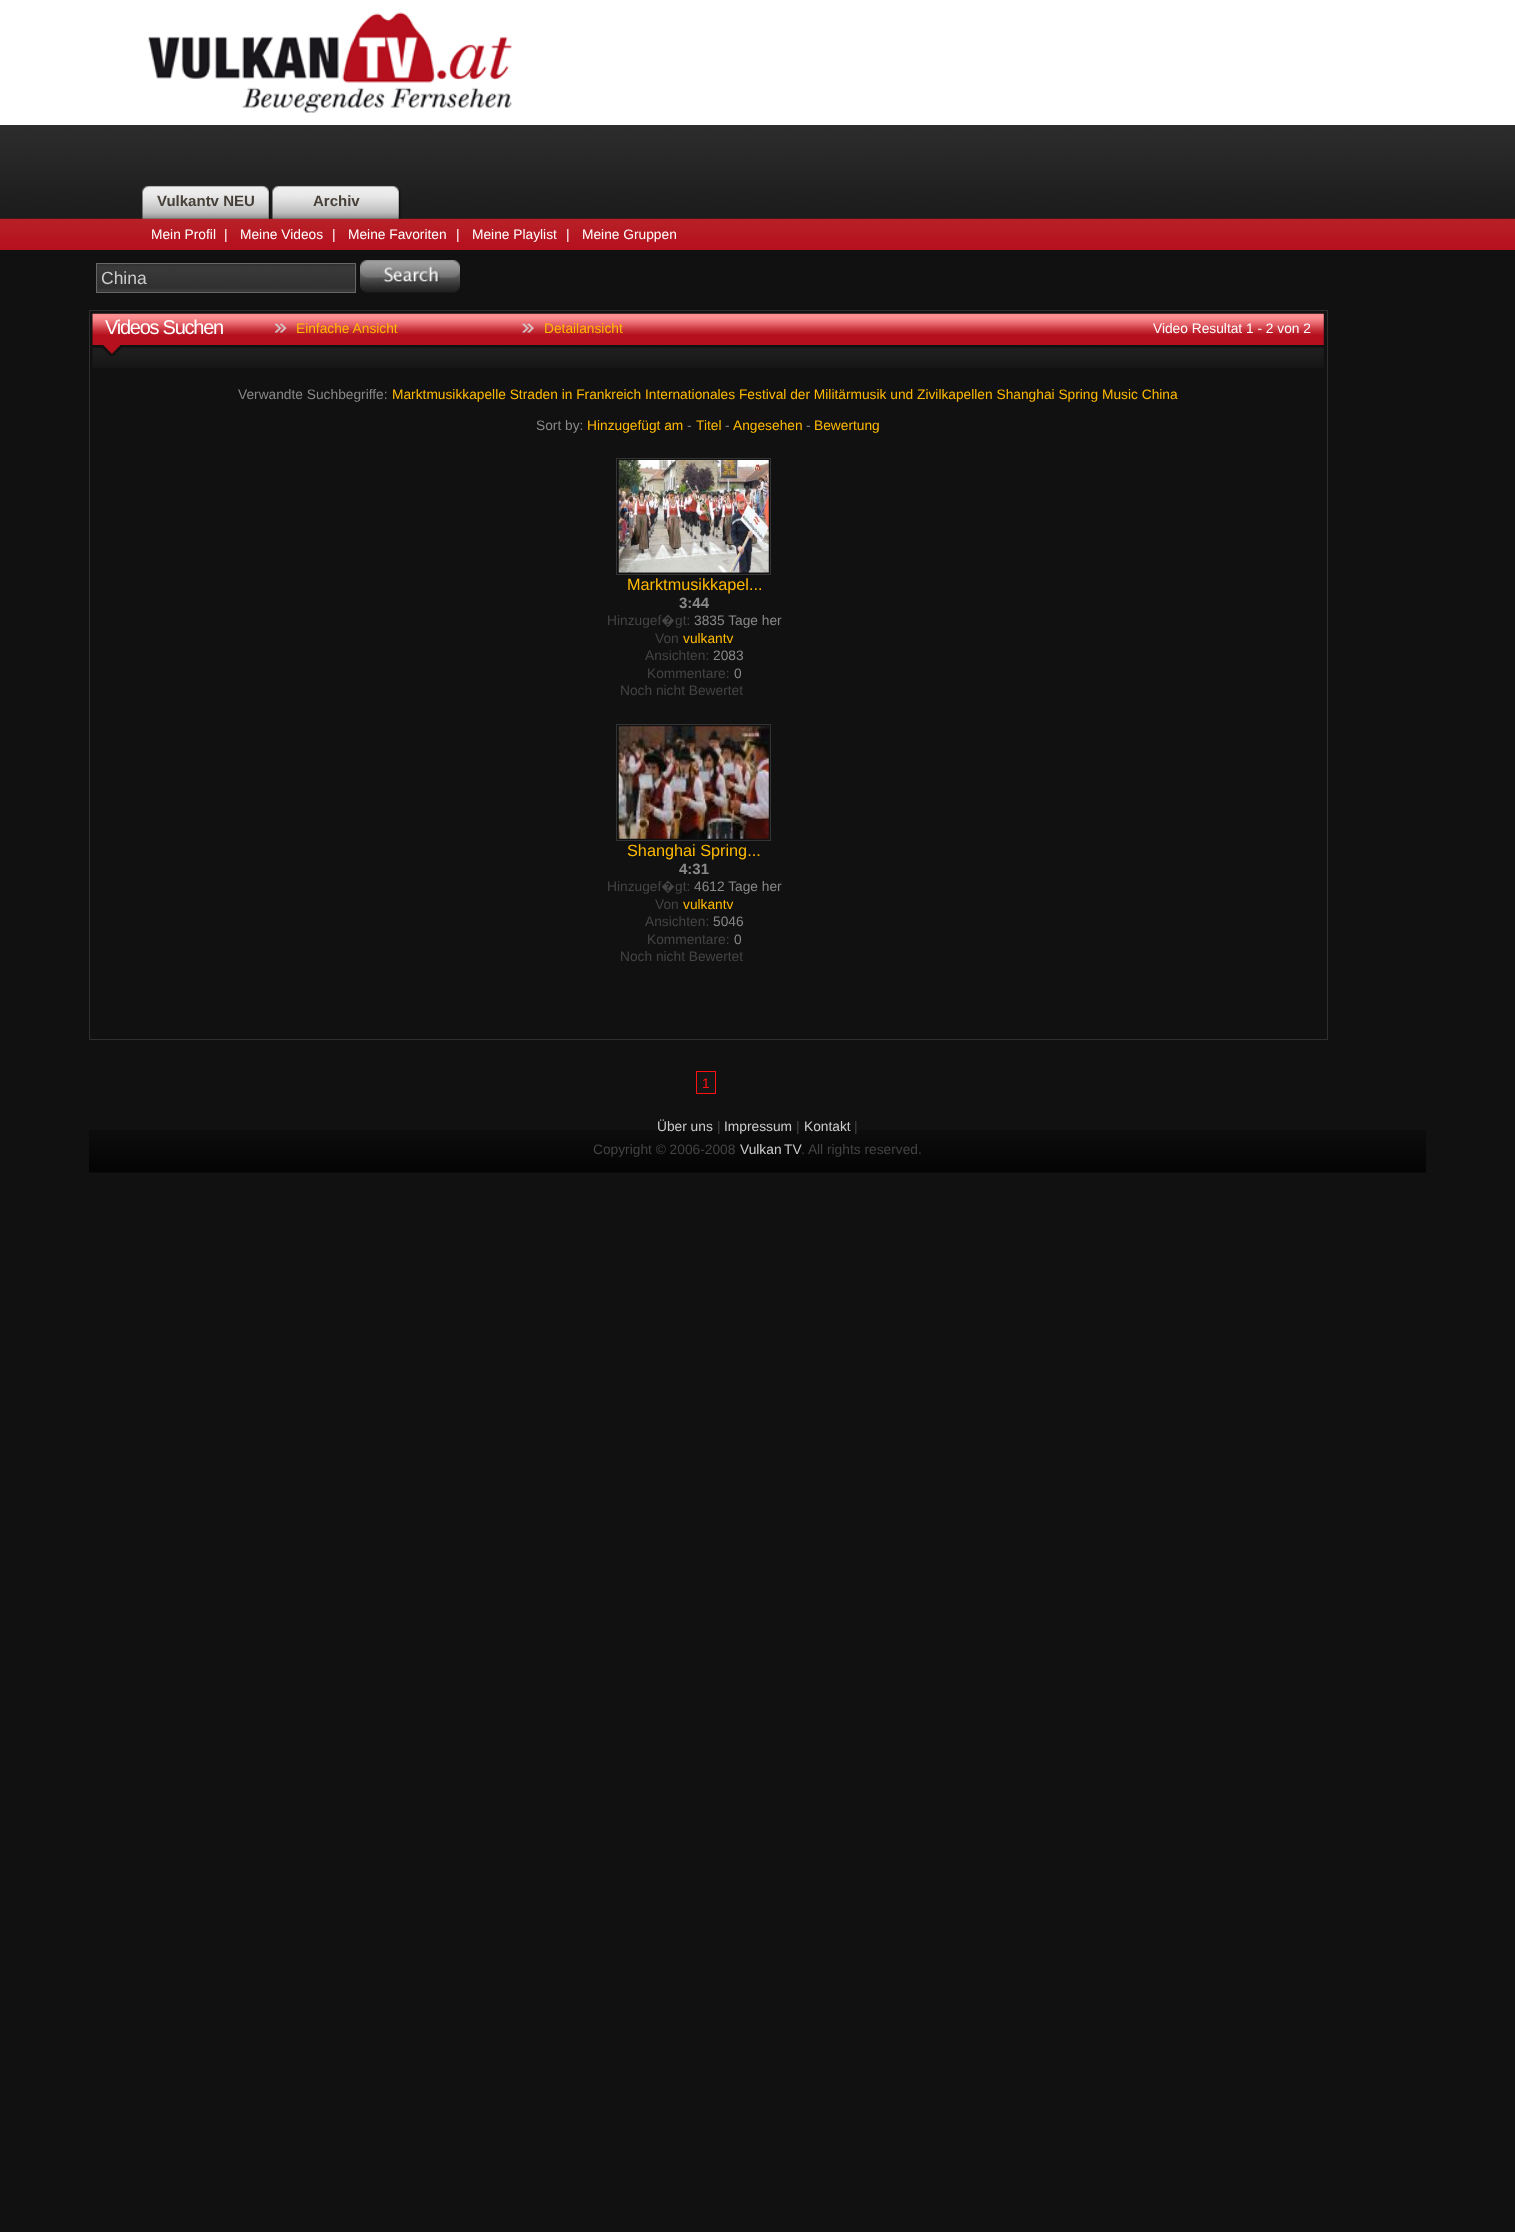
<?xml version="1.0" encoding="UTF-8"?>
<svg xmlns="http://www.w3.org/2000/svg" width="1515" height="2232">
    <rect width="100%" height="100%" fill="#111111"/>
    <rect x="0" y="0" width="1515" height="125" fill="#FFFFFF"/>
    <image x="148" y="12" width="364" height="101" href="img_01.png"/>
    <image x="0" y="125" width="1515" height="94" href="img_02.png"/>
    <image x="0" y="218" width="1515" height="32" href="img_04.png"/>
    <image x="142" y="185" width="130" height="34" href="img_03.png"/>
    <text x="157" y="206" font-family="Liberation Sans" font-size="15" font-weight="700" fill="#474038">Vulkantv NEU</text>
    <image x="272" y="185" width="130" height="34" href="img_03.png"/>
    <text x="313" y="206" font-family="Liberation Sans" font-size="15" font-weight="700" fill="#474038">Archiv</text>
    <text x="151" y="239" font-family="Liberation Sans" font-size="13.75" fill="#FFFFFF">Mein Profil</text>
    <text x="224" y="239" font-family="Liberation Sans" font-size="13.75" fill="#FFFFFF">|</text>
    <text x="240" y="239" font-family="Liberation Sans" font-size="13.75" fill="#FFFFFF">Meine Videos</text>
    <text x="332" y="239" font-family="Liberation Sans" font-size="13.75" fill="#FFFFFF">|</text>
    <text x="348" y="239" font-family="Liberation Sans" font-size="13.75" fill="#FFFFFF">Meine Favoriten</text>
    <text x="456" y="239" font-family="Liberation Sans" font-size="13.75" fill="#FFFFFF">|</text>
    <text x="472" y="239" font-family="Liberation Sans" font-size="13.75" fill="#FFFFFF">Meine Playlist</text>
    <text x="566" y="239" font-family="Liberation Sans" font-size="13.75" fill="#FFFFFF">|</text>
    <text x="582" y="239" font-family="Liberation Sans" font-size="13.75" fill="#FFFFFF">Meine Gruppen</text>
    <rect x="97" y="264" width="258" height="28" fill="#393939"/>
    <image x="97" y="264" width="260" height="25" href="img_05.png"/>
    <rect x="96.5" y="263.5" width="259" height="29" fill="none" stroke="#666666"/>
    <text x="101" y="284" font-family="Liberation Sans" font-size="17.5" fill="#CCCCCC">China</text>
    <image x="360" y="260" width="100" height="33" href="img_06.png"/>
    <rect x="89.5" y="310.5" width="1238" height="729" fill="none" stroke="#2F2F2F"/>
    <image x="92" y="313" width="1232" height="32" href="img_07.png"/>
    <text x="105" y="334" font-family="Liberation Sans" font-size="20" letter-spacing="-1.25" fill="#FFFFFF">Videos Suchen</text>
    <image x="275" y="323" width="12" height="10" href="img_08.png"/>
    <text x="296" y="333" font-family="Liberation Sans" font-size="13.75" fill="#FFBA00">Einfache Ansicht</text>
    <image x="522" y="323" width="12" height="10" href="img_09.png"/>
    <text x="544" y="333" font-family="Liberation Sans" font-size="13.75" fill="#FFBA00">Detailansicht</text>
    <text x="1153" y="333" font-family="Liberation Sans" font-size="13.75" fill="#FFFFFF">Video Resultat 1 - 2 von 2</text>
    <image x="92" y="347" width="1232" height="21" href="img_10.png"/>
    <image x="93" y="345" width="28" height="11" href="img_11.png"/>
    <text x="238" y="399" font-family="Liberation Sans" font-size="13.75" fill="#888888">Verwandte Suchbegriffe:</text>
    <text x="392" y="399" font-family="Liberation Sans" font-size="13.75" fill="#FFBA00">Marktmusikkapelle Straden in Frankreich Internationales Festival der Militärmusik und Zivilkapellen Shanghai Spring Music China</text>
    <text x="536" y="430" font-family="Liberation Sans" font-size="13.75" fill="#888888">Sort by:</text>
    <text x="587" y="430" font-family="Liberation Sans" font-size="13.75" fill="#FFBA00">Hinzugefügt am</text>
    <text x="687" y="430" font-family="Liberation Sans" font-size="13.75" fill="#888888">-</text>
    <text x="696" y="430" font-family="Liberation Sans" font-size="13.75" fill="#FFBA00">Titel</text>
    <text x="725" y="430" font-family="Liberation Sans" font-size="13.75" fill="#888888">-</text>
    <text x="733" y="430" font-family="Liberation Sans" font-size="13.75" fill="#FFBA00">Angesehen</text>
    <text x="806" y="430" font-family="Liberation Sans" font-size="13.75" fill="#888888">-</text>
    <text x="814" y="430" font-family="Liberation Sans" font-size="13.75" fill="#FFBA00">Bewertung</text>
    <rect x="616.5" y="458.5" width="154" height="116" fill="none" stroke="#333333"/>
    <image x="618" y="460" width="151" height="113" href="img_12.png"/>
    <text x="627" y="590" font-family="Liberation Sans" font-size="16.25" fill="#FFBA00">Marktmusikkapel...</text>
    <text x="679" y="608" font-family="Liberation Sans" font-size="15" font-weight="700" fill="#888888">3:44</text>
    <text x="607" y="625" font-family="Liberation Sans" font-size="13.75" fill="#444444">Hinzugef</text>
    <text x="661" y="625" font-family="Noto Sans" font-size="13.75" fill="#444444">�</text>
    <text x="675" y="625" font-family="Liberation Sans" font-size="13.75" fill="#444444">gt:</text>
    <text x="694" y="625" font-family="Liberation Sans" font-size="13.75" fill="#888888">3835 Tage her</text>
    <text x="655" y="643" font-family="Liberation Sans" font-size="13.75" fill="#444444">Von</text>
    <text x="683" y="643" font-family="Liberation Sans" font-size="13.75" fill="#FFBA00">vulkantv</text>
    <text x="645" y="660" font-family="Liberation Sans" font-size="13.75" fill="#444444">Ansichten:</text>
    <text x="713" y="660" font-family="Liberation Sans" font-size="13.75" fill="#888888">2083</text>
    <text x="647" y="678" font-family="Liberation Sans" font-size="13.75" fill="#444444">Kommentare:</text>
    <text x="734" y="678" font-family="Liberation Sans" font-size="13.75" fill="#888888">0</text>
    <text x="620" y="695" font-family="Liberation Sans" font-size="13.75" fill="#444444">Noch nicht Bewertet</text>
    <rect x="616.5" y="724.5" width="154" height="116" fill="none" stroke="#333333"/>
    <image x="618" y="726" width="151" height="113" href="img_13.png"/>
    <text x="627" y="856" font-family="Liberation Sans" font-size="16.25" fill="#FFBA00">Shanghai Spring...</text>
    <text x="679" y="874" font-family="Liberation Sans" font-size="15" font-weight="700" fill="#888888">4:31</text>
    <text x="607" y="891" font-family="Liberation Sans" font-size="13.75" fill="#444444">Hinzugef</text>
    <text x="661" y="891" font-family="Noto Sans" font-size="13.75" fill="#444444">�</text>
    <text x="675" y="891" font-family="Liberation Sans" font-size="13.75" fill="#444444">gt:</text>
    <text x="694" y="891" font-family="Liberation Sans" font-size="13.75" fill="#888888">4612 Tage her</text>
    <text x="655" y="909" font-family="Liberation Sans" font-size="13.75" fill="#444444">Von</text>
    <text x="683" y="909" font-family="Liberation Sans" font-size="13.75" fill="#FFBA00">vulkantv</text>
    <text x="645" y="926" font-family="Liberation Sans" font-size="13.75" fill="#444444">Ansichten:</text>
    <text x="713" y="926" font-family="Liberation Sans" font-size="13.75" fill="#888888">5046</text>
    <text x="647" y="944" font-family="Liberation Sans" font-size="13.75" fill="#444444">Kommentare:</text>
    <text x="734" y="944" font-family="Liberation Sans" font-size="13.75" fill="#888888">0</text>
    <text x="620" y="961" font-family="Liberation Sans" font-size="13.75" fill="#444444">Noch nicht Bewertet</text>
    <rect x="696.5" y="1071.5" width="19" height="22" fill="#161616" stroke="#FF1111"/>
    <text x="702" y="1088" font-family="Liberation Sans" font-size="13.75" fill="#FF1111">1</text>
    <image x="89" y="1130" width="1337" height="43" href="img_14.png"/>
    <text x="657" y="1131" font-family="Liberation Sans" font-size="13.75" fill="#CCCCCC">Über uns</text>
    <text x="717" y="1131" font-family="Liberation Sans" font-size="13.75" fill="#444444">|</text>
    <text x="724" y="1131" font-family="Liberation Sans" font-size="13.75" fill="#CCCCCC">Impressum</text>
    <text x="796" y="1131" font-family="Liberation Sans" font-size="13.75" fill="#444444">|</text>
    <text x="804" y="1131" font-family="Liberation Sans" font-size="13.75" fill="#CCCCCC">Kontakt</text>
    <text x="854" y="1131" font-family="Liberation Sans" font-size="13.75" fill="#444444">|</text>
    <text x="593" y="1154" font-family="Liberation Sans" font-size="13.75" fill="#444444">Copyright © 2006-2008</text>
    <text x="740" y="1154" word-spacing="-1" font-family="Liberation Sans" font-size="13.75" fill="#CCCCCC">Vulkan TV</text>
    <text x="801" y="1154" font-family="Liberation Sans" font-size="13.75" fill="#444444">. All rights reserved.</text>
</svg>
